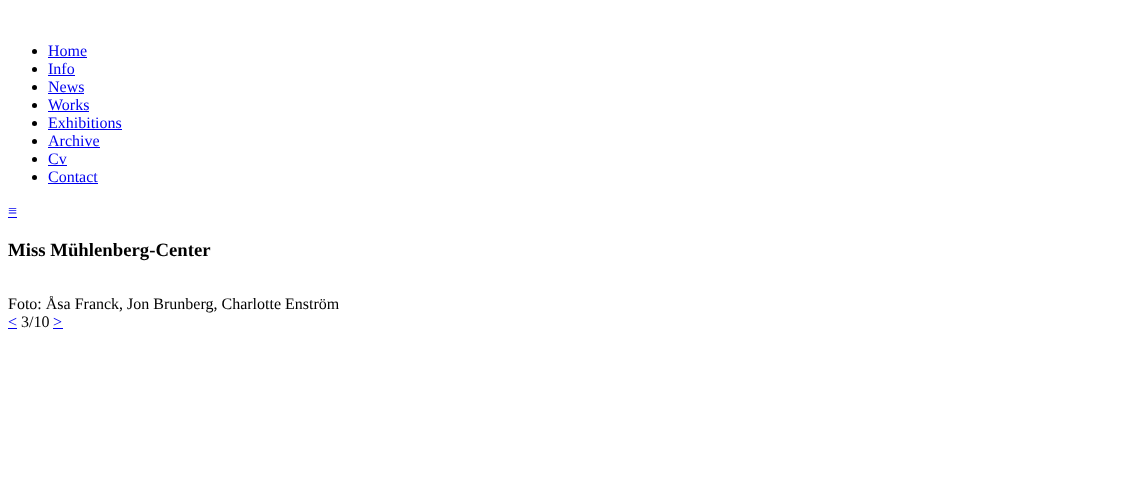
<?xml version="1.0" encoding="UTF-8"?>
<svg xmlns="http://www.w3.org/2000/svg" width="1143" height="481">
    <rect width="100%" height="100%" fill="#FFFFFF"/>
    <circle cx="34.5" cy="51.5" r="2.5" fill="#000000"/>
    <text x="48" y="56" font-family="Liberation Serif" font-size="16" fill="#0000EE">Home</text>
    <rect x="48" y="57" width="39" height="1" fill="#0000EE"/>
    <circle cx="34.5" cy="69.5" r="2.5" fill="#000000"/>
    <text x="48" y="74" font-family="Liberation Serif" font-size="16" fill="#0000EE">Info</text>
    <rect x="48" y="75" width="27" height="1" fill="#0000EE"/>
    <circle cx="34.5" cy="87.5" r="2.5" fill="#000000"/>
    <text x="48" y="92" font-family="Liberation Serif" font-size="16" fill="#0000EE">News</text>
    <rect x="48" y="93" width="36" height="1" fill="#0000EE"/>
    <circle cx="34.5" cy="105.5" r="2.5" fill="#000000"/>
    <text x="48" y="110" font-family="Liberation Serif" font-size="16" fill="#0000EE">Works</text>
    <rect x="48" y="111" width="41" height="1" fill="#0000EE"/>
    <circle cx="34.5" cy="123.5" r="2.5" fill="#000000"/>
    <text x="48" y="128" font-family="Liberation Serif" font-size="16" fill="#0000EE">Exhibitions</text>
    <rect x="48" y="129" width="74" height="1" fill="#0000EE"/>
    <circle cx="34.5" cy="141.5" r="2.5" fill="#000000"/>
    <text x="48" y="146" font-family="Liberation Serif" font-size="16" fill="#0000EE">Archive</text>
    <rect x="48" y="147" width="52" height="1" fill="#0000EE"/>
    <circle cx="34.5" cy="159.5" r="2.5" fill="#000000"/>
    <text x="48" y="164" font-family="Liberation Serif" font-size="16" fill="#0000EE">Cv</text>
    <rect x="48" y="165" width="19" height="1" fill="#0000EE"/>
    <circle cx="34.5" cy="177.5" r="2.5" fill="#000000"/>
    <text x="48" y="182" font-family="Liberation Serif" font-size="16" fill="#0000EE">Contact</text>
    <rect x="48" y="183" width="50" height="1" fill="#0000EE"/>
    <text x="8" y="216" font-family="Liberation Serif" font-size="16" fill="#0000EE">≡</text>
    <rect x="8" y="217" width="9" height="1" fill="#0000EE"/>
    <text x="8" y="256" font-family="Liberation Serif" font-size="18.75" font-weight="700" fill="#000000">Miss Mühlenberg-Center</text>
    <text x="8" y="309" font-family="Liberation Serif" font-size="16" fill="#000000">Foto: Åsa Franck, Jon Brunberg, Charlotte Enström</text>
    <text x="8" y="327" font-family="Liberation Serif" font-size="16" fill="#0000EE">&lt;</text>
    <rect x="8" y="328" width="9" height="1" fill="#0000EE"/>
    <text x="21" y="327" font-family="Liberation Serif" font-size="16" fill="#000000">3/10</text>
    <text x="53" y="327" font-family="Liberation Serif" font-size="16" fill="#0000EE">&gt;</text>
    <rect x="53" y="328" width="10" height="1" fill="#0000EE"/>
</svg>
